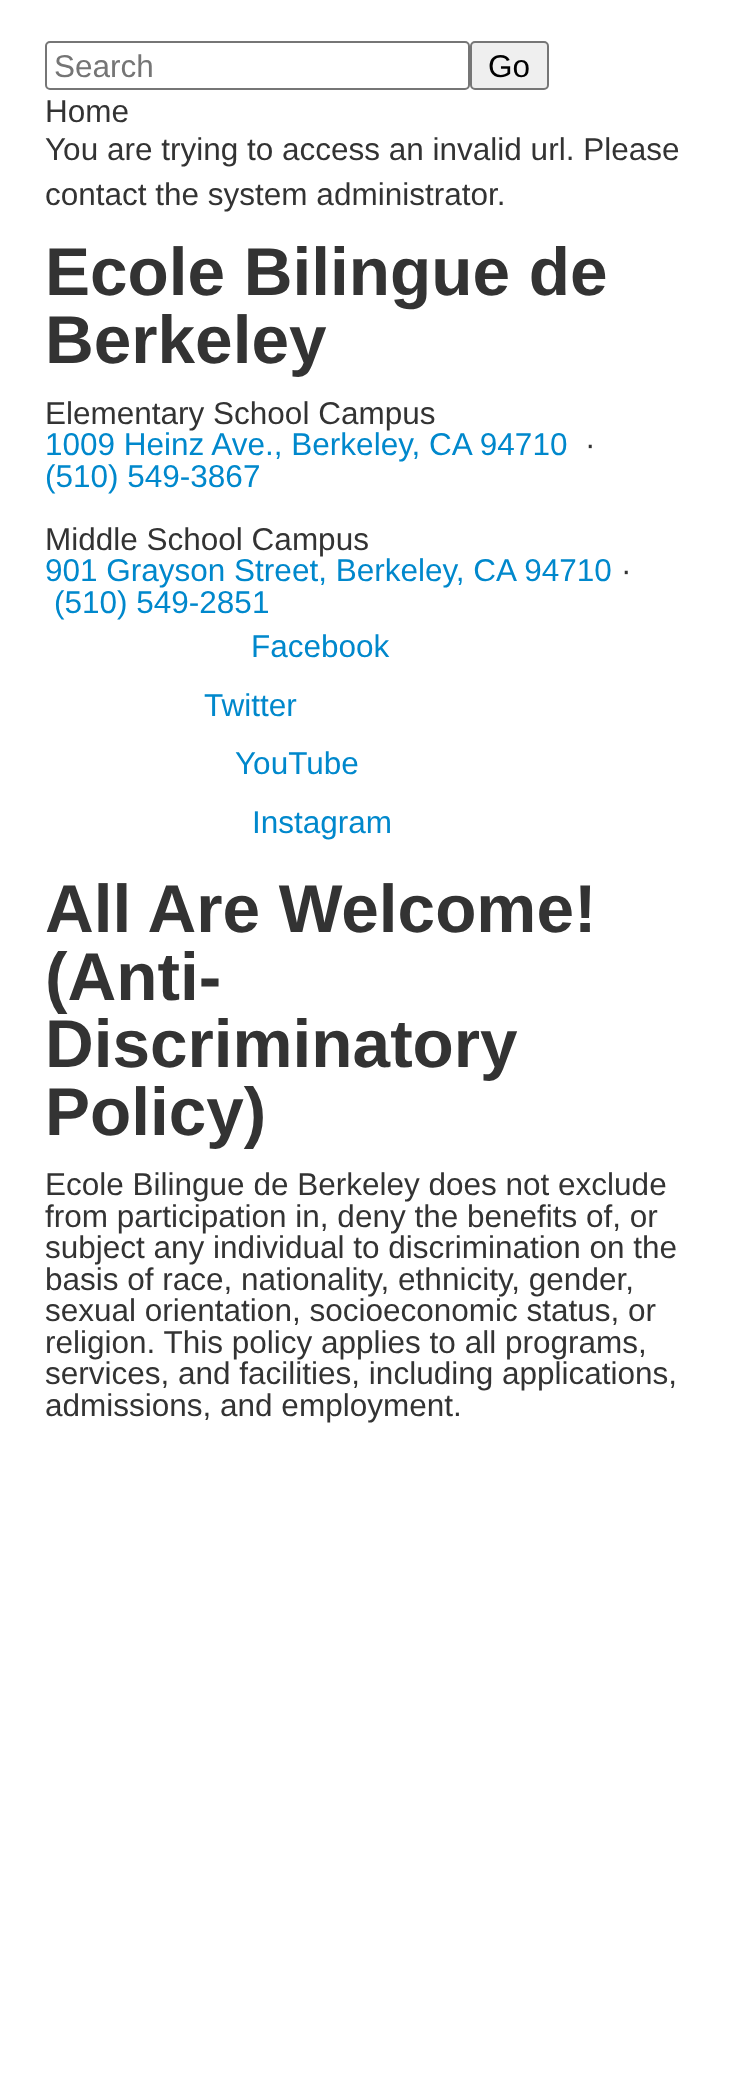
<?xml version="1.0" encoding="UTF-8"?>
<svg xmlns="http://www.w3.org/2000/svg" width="731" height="2073">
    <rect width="100%" height="100%" fill="#FFFFFF"/>
    <rect x="46" y="42" width="423" height="47" rx="4" fill="none" stroke="#767676" stroke-width="2"/>
    <text x="54" y="77" font-family="Liberation Sans" font-size="31.5" fill="#757575">Search</text>
    <rect x="471" y="42" width="77" height="47" rx="4" fill="#EFEFEF" stroke="#767676" stroke-width="2"/>
    <text x="488" y="77" font-family="Liberation Sans" font-size="31.5" fill="#000000">Go</text>
    <text font-family="Liberation Sans" font-size="31.5" fill="#333333">
        <tspan x="45" y="122">Home</tspan>
        <tspan x="45" y="160">You are trying to access an invalid url. Please</tspan>
        <tspan x="45" y="205">contact the system administrator.</tspan>
    </text>
    <text font-family="Liberation Sans" font-size="67.5" font-weight="700" fill="#333333">
        <tspan x="45" y="295">Ecole Bilingue de</tspan>
        <tspan x="45" y="363">Berkeley</tspan>
    </text>
    <text x="45" y="424" font-family="Liberation Sans" font-size="31.5" fill="#333333">Elementary School Campus</text>
    <text x="45" y="455" font-family="Liberation Sans" font-size="31.5" fill="#0088CC">1009 Heinz Ave., Berkeley, CA 94710</text>
    <text x="585" y="455" font-family="Liberation Sans" font-size="31.5" fill="#333333">·</text>
    <text x="45" y="487" font-family="Liberation Sans" font-size="31.5" fill="#0088CC">(510) 549-3867</text>
    <text x="45" y="550" font-family="Liberation Sans" font-size="31.5" fill="#333333">Middle School Campus</text>
    <text x="45" y="581" font-family="Liberation Sans" font-size="31.5" fill="#0088CC">901 Grayson Street, Berkeley, CA 94710</text>
    <text x="621" y="581" font-family="Liberation Sans" font-size="31.5" fill="#333333">·</text>
    <text x="54" y="613" font-family="Liberation Sans" font-size="31.5" fill="#0088CC">(510) 549-2851</text>
    <text x="251" y="657" font-family="Liberation Sans" font-size="31.5" fill="#0088CC">Facebook</text>
    <text x="204" y="716" font-family="Liberation Sans" font-size="31.5" fill="#0088CC">Twitter</text>
    <text x="235" y="774" font-family="Liberation Sans" font-size="31.5" fill="#0088CC">YouTube</text>
    <text x="252" y="833" font-family="Liberation Sans" font-size="31.5" fill="#0088CC">Instagram</text>
    <text font-family="Liberation Sans" font-size="67.5" font-weight="700" fill="#333333">
        <tspan x="45" y="932">All Are Welcome!</tspan>
        <tspan x="45" y="1000">(Anti-</tspan>
        <tspan x="45" y="1067">Discriminatory</tspan>
        <tspan x="45" y="1135">Policy)</tspan>
    </text>
    <text font-family="Liberation Sans" font-size="31.5" fill="#333333">
        <tspan x="45" y="1195">Ecole Bilingue de Berkeley does not exclude</tspan>
        <tspan x="45" y="1227">from participation in, deny the benefits of, or</tspan>
        <tspan x="45" y="1258">subject any individual to discrimination on the</tspan>
        <tspan x="45" y="1290">basis of race, nationality, ethnicity, gender,</tspan>
        <tspan x="45" y="1321">sexual orientation, socioeconomic status, or</tspan>
        <tspan x="45" y="1353">religion. This policy applies to all programs,</tspan>
        <tspan x="45" y="1384">services, and facilities, including applications,</tspan>
        <tspan x="45" y="1416">admissions, and employment.</tspan>
    </text>
</svg>
